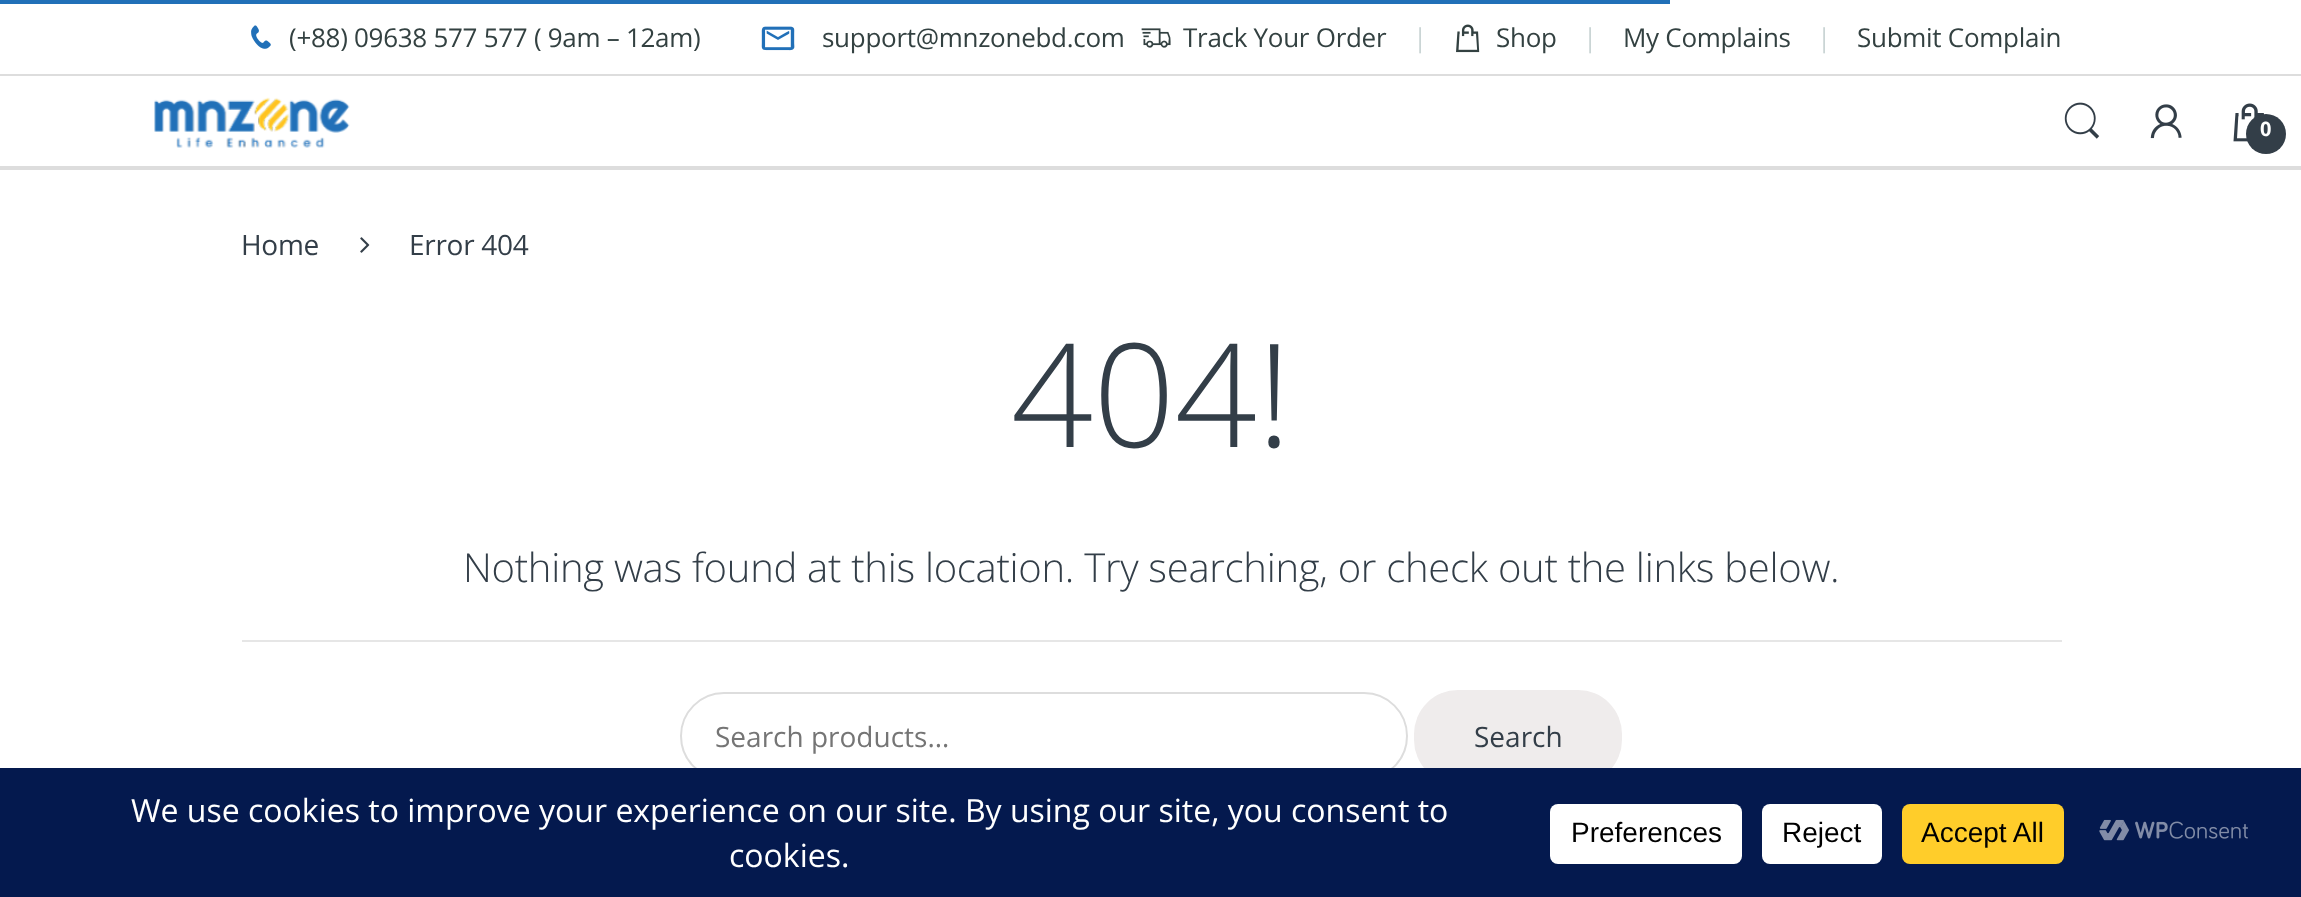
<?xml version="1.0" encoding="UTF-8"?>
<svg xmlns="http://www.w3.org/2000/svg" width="2301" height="897">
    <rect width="100%" height="100%" fill="#FFFFFF"/>
    <rect x="0" y="0" width="1670" height="4" fill="#2170B8"/>
    <rect x="0" y="74" width="2301" height="2" fill="#DDDDDD"/>
    <image x="251" y="25" width="20" height="24" href="img_01.png"/>
    <text x="289" y="47" font-family="Open Sans" font-size="26" letter-spacing="-0.28" fill="#334141">(+88) 09638 577 577 ( 9am – 12am)</text>
    <image x="761" y="26" width="34" height="25" href="img_02.png"/>
    <text x="822" y="47" font-family="Open Sans" font-size="26" letter-spacing="-0.28" fill="#334141">support@mnzonebd.com</text>
    <image x="1141" y="28" width="30" height="20" href="img_03.png"/>
    <text x="1183" y="47" font-family="Open Sans" font-size="26" letter-spacing="-0.28" fill="#334141">Track Your Order</text>
    <text x="1413" y="47" font-family="Open Sans" font-size="26" letter-spacing="-0.28" fill="#CAD5D5">|</text>
    <image x="1456" y="24" width="24" height="29" href="img_04.png"/>
    <text x="1496" y="47" font-family="Open Sans" font-size="26" letter-spacing="-0.28" fill="#334141">Shop</text>
    <text x="1583" y="47" font-family="Open Sans" font-size="26" letter-spacing="-0.28" fill="#CAD5D5">|</text>
    <text x="1623" y="47" font-family="Open Sans" font-size="26" letter-spacing="-0.28" fill="#334141">My Complains</text>
    <text x="1817" y="47" font-family="Open Sans" font-size="26" letter-spacing="-0.28" fill="#CAD5D5">|</text>
    <text x="1857" y="47" font-family="Open Sans" font-size="26" letter-spacing="-0.28" fill="#334141">Submit Complain</text>
    <rect x="0" y="166" width="2301" height="4" fill="#DDDDDD"/>
    <image x="154" y="97" width="196" height="51" href="img_05.png"/>
    <image x="2064" y="102" width="36" height="37" href="img_06.png"/>
    <image x="2150" y="104" width="32" height="35" href="img_07.png"/>
    <image x="2233" y="103" width="31" height="39" href="img_08.png"/>
    <circle cx="2266" cy="134" r="20" fill="#333E48"/>
    <text x="2260" y="136" font-family="Open Sans" font-size="20" font-weight="700" letter-spacing="-0.28" fill="#FFFFFF">0</text>
    <text x="241" y="255" font-family="Open Sans" font-size="28" letter-spacing="-0.28" fill="#333E48">Home</text>
    <image x="360" y="237" width="10" height="16" href="img_09.png"/>
    <text x="409" y="255" font-family="Open Sans" font-size="28" letter-spacing="-0.28" fill="#333E48">Error 404</text>
    <text x="1011" y="447" font-family="Open Sans" font-size="144" font-weight="300" letter-spacing="-0.28" fill="#333E48">404!</text>
    <text x="463" y="582" font-family="Open Sans" font-size="40" font-weight="300" letter-spacing="-0.28" fill="#333E48">Nothing was found at this location. Try searching, or check out the links below.</text>
    <rect x="242" y="640" width="1820" height="2" fill="#E6E6E6"/>
    <rect x="681" y="693" width="726" height="86" rx="43" fill="none" stroke="#DDDDDD" stroke-width="2"/>
    <text x="715" y="747" font-family="Open Sans" font-size="28" fill="#757575">Search products…</text>
    <rect x="1414" y="690" width="208" height="94" rx="44" fill="#EFECEC"/>
    <text x="1474" y="747" font-family="Open Sans" font-size="28" fill="#333E48">Search</text>
    <rect x="0" y="768" width="2301" height="129" fill="#04194E"/>
    <text x="131" y="822" font-family="Open Sans" font-size="32" fill="#FFFFFF">We use cookies to improve your experience on our site. By using our site, you consent to</text>
    <text x="729" y="867" font-family="Open Sans" font-size="32" fill="#FFFFFF">cookies.</text>
    <rect x="1550" y="804" width="192" height="60" rx="8" fill="#FFFFFF"/>
    <text x="1571" y="842" font-family="Liberation Sans" font-size="28" fill="#000000">Preferences</text>
    <rect x="1762" y="804" width="120" height="60" rx="8" fill="#FFFFFF"/>
    <text x="1782" y="842" font-family="Liberation Sans" font-size="28" fill="#000000">Reject</text>
    <rect x="1902" y="804" width="162" height="60" rx="8" fill="#FFCD2A"/>
    <text x="1921" y="842" font-family="Liberation Sans" font-size="28" fill="#000000">Accept All</text>
    <image x="2099" y="819" width="149" height="22" href="img_10.png"/>
</svg>
